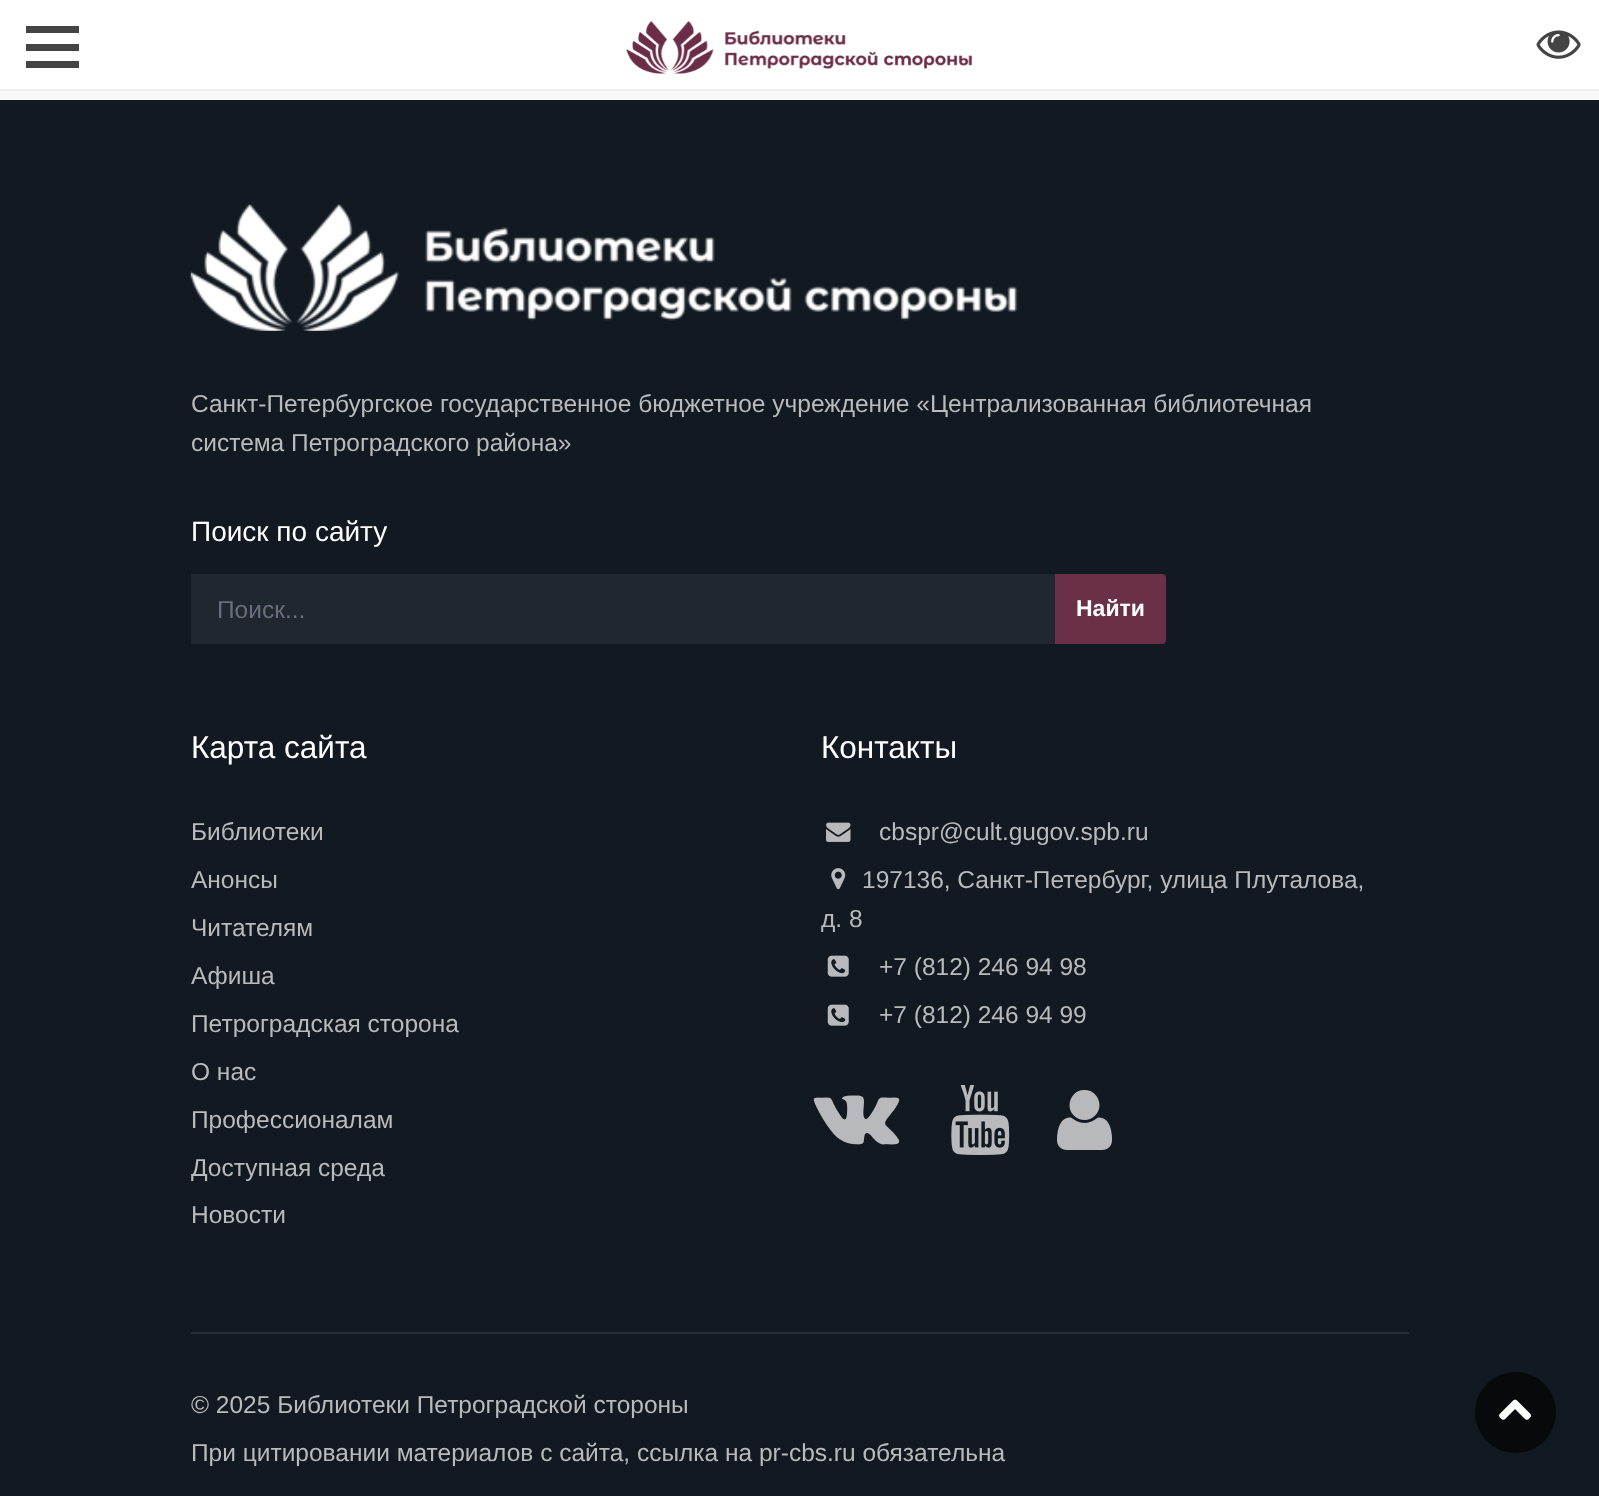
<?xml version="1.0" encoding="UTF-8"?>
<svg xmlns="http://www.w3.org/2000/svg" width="1599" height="1496">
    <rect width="100%" height="100%" fill="#F8F8F8"/>
    <rect x="0" y="0" width="1599" height="89" fill="#FFFFFF"/>
    <rect x="0" y="89" width="1599" height="2" fill="#EDEDED"/>
    <rect x="26" y="44" width="53" height="7" fill="#444444"/>
    <rect x="26" y="26" width="53" height="7" fill="#444444"/>
    <rect x="26" y="61" width="53" height="7" fill="#444444"/>
    <image x="626" y="21" width="347" height="53" href="img_01.png"/>
    <image x="1536" y="30" width="45" height="29" href="img_02.png"/>
    <rect x="0" y="100" width="1599" height="1396" fill="#121921"/>
    <image x="190" y="204" width="828" height="127" href="img_03.png"/>
    <text font-family="Liberation Sans" font-size="24.5" fill="#B8BABC">
        <tspan x="191" y="412">Санкт-Петербургское государственное бюджетное учреждение «Централизованная библиотечная</tspan>
        <tspan x="191" y="451">система Петроградского района»</tspan>
    </text>
    <text x="191" y="541" font-family="Liberation Sans" font-size="28" fill="#FFFFFF">Поиск по сайту</text>
    <rect x="191" y="574" width="975" height="70" fill="#20272E"/>
    <text x="217" y="618" font-family="Liberation Sans" font-size="24.5" fill="#6B6C7E">Поиск...</text>
    <path d="M 1055 574 H 1161 C 1164 574 1166 576 1166 579 V 639 C 1166 642 1164 644 1161 644 H 1055 Z" fill="#6A3048"/>
    <text x="1076" y="616" font-family="Liberation Sans" font-size="23" font-weight="700" fill="#FFFFFF">Найти</text>
    <text x="191" y="758" font-family="Liberation Sans" font-size="31.5" fill="#FFFFFF">Карта сайта</text>
    <text font-family="Liberation Sans" font-size="24.5" fill="#B8BABC">
        <tspan x="191" y="840">Библиотеки</tspan>
        <tspan x="191" y="888">Анонсы</tspan>
        <tspan x="191" y="936">Читателям</tspan>
        <tspan x="191" y="984">Афиша</tspan>
        <tspan x="191" y="1032">Петроградская сторона</tspan>
        <tspan x="191" y="1080">О нас</tspan>
        <tspan x="191" y="1128">Профессионалам</tspan>
        <tspan x="191" y="1176">Доступная среда</tspan>
        <tspan x="191" y="1223">Новости</tspan>
    </text>
    <text x="821" y="758" font-family="Liberation Sans" font-size="31.5" fill="#FFFFFF">Контакты</text>
    <image x="826" y="822" width="25" height="20" href="img_04.png"/>
    <text x="879" y="840" font-family="Liberation Sans" font-size="24.5" fill="#B8BABC">cbspr@cult.gugov.spb.ru</text>
    <image x="831" y="868" width="15" height="22" href="img_05.png"/>
    <text x="862" y="888" font-family="Liberation Sans" font-size="24.5" fill="#B8BABC">197136, Санкт-Петербург, улица Плуталова,</text>
    <text x="821" y="927" font-family="Liberation Sans" font-size="24.5" fill="#B8BABC">д. 8</text>
    <image x="827" y="955" width="22" height="22" href="img_06.png"/>
    <text x="879" y="975" font-family="Liberation Sans" font-size="24.5" fill="#B8BABC">+7 (812) 246 94 98</text>
    <image x="827" y="1004" width="22" height="22" href="img_06.png"/>
    <text x="879" y="1023" font-family="Liberation Sans" font-size="24.5" fill="#B8BABC">+7 (812) 246 94 99</text>
    <image x="813" y="1095" width="87" height="50" href="img_07.png"/>
    <image x="951" y="1085" width="59" height="70" href="img_08.png"/>
    <image x="1057" y="1090" width="55" height="60" href="img_09.png"/>
    <rect x="191" y="1332" width="1218" height="2" fill="#282E35"/>
    <text font-family="Liberation Sans" font-size="24.5" fill="#B8BABC">
        <tspan x="191" y="1413">© 2025 Библиотеки Петроградской стороны</tspan>
        <tspan x="191" y="1461">При цитировании материалов с сайта, ссылка на pr-cbs.ru обязательна</tspan>
    </text>
    <circle cx="1515.5" cy="1412.5" r="40.5" fill="#070A0D"/>
    <image x="1499" y="1399" width="32" height="21" href="img_10.png"/>
</svg>
